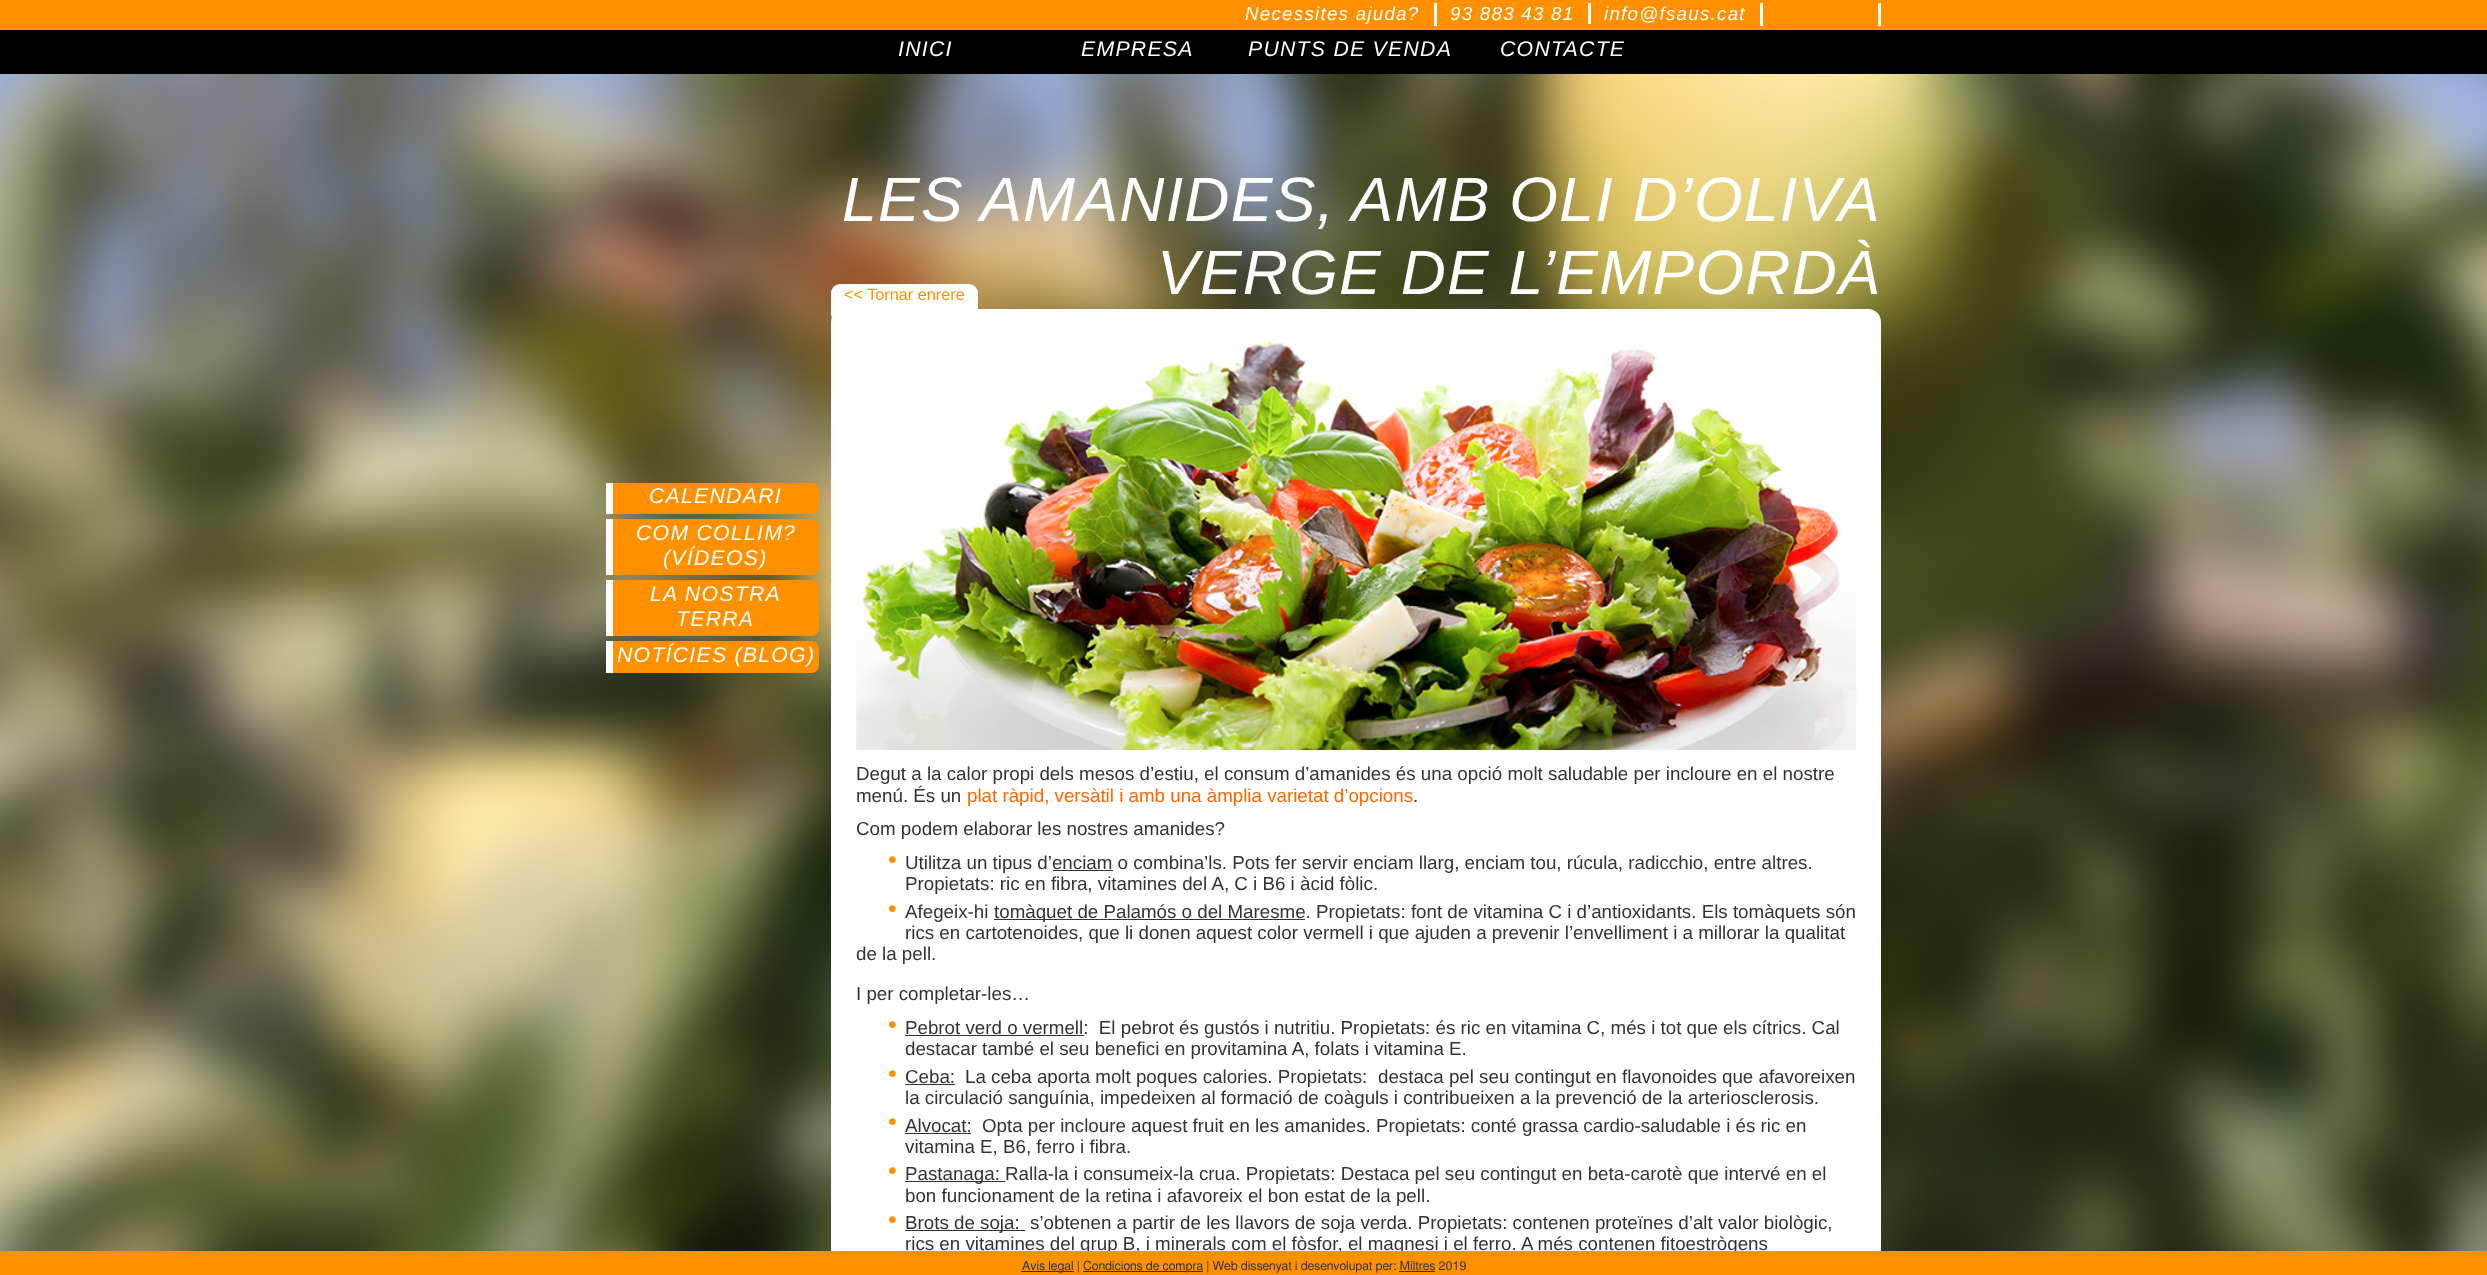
<?xml version="1.0" encoding="UTF-8"?>
<svg xmlns="http://www.w3.org/2000/svg" width="2487" height="1275">
    <rect width="100%" height="100%" fill="#FFFFFF"/>
    <image x="0" y="74" width="2487" height="1177" href="img_01.png"/>
    <rect x="0" y="0" width="2487" height="30" fill="#FF9000"/>
    <text x="1245" y="20" font-family="Liberation Sans" font-size="18.75" font-style="italic" letter-spacing="1.25" fill="#FFFFFF">Necessites ajuda?</text>
    <rect x="1434" y="3" width="3" height="23" fill="#FFFFFF"/>
    <rect x="1588" y="3" width="3" height="21" fill="#FFFFFF"/>
    <text x="1450" y="20" font-family="Liberation Sans" font-size="18.75" font-style="italic" letter-spacing="1.25" fill="#FFFFFF">93 883 43 81</text>
    <text x="1604" y="20" font-family="Liberation Sans" font-size="18.75" font-style="italic" letter-spacing="1.25" fill="#FFFFFF">info@fsaus.cat</text>
    <rect x="1760" y="3" width="3" height="23" fill="#FFFFFF"/>
    <rect x="1878" y="3" width="3" height="23" fill="#FFFFFF"/>
    <rect x="0" y="30" width="2487" height="44" fill="#000000"/>
    <text x="898" y="56" font-family="Liberation Sans" font-size="21.25" font-style="italic" letter-spacing="1.25" fill="#FFFFFF">INICI</text>
    <text x="1081" y="56" font-family="Liberation Sans" font-size="21.25" font-style="italic" letter-spacing="1.25" fill="#FFFFFF">EMPRESA</text>
    <text x="1248" y="56" font-family="Liberation Sans" font-size="21.25" font-style="italic" letter-spacing="1.25" fill="#FFFFFF">PUNTS DE VENDA</text>
    <text x="1500" y="56" font-family="Liberation Sans" font-size="21.25" font-style="italic" letter-spacing="1.25" fill="#FFFFFF">CONTACTE</text>
    <path d="M 606 483 H 811 C 815.5 483 819 486.5 819 491 V 506 C 819 510.5 815.5 514 811 514 H 606 Z" fill="#FF9000"/>
    <rect x="606" y="483" width="7" height="31" fill="#FFFFFF"/>
    <text x="649" y="503" font-family="Liberation Sans" font-size="21.25" font-style="italic" letter-spacing="1.25" fill="#FFFFFF">CALENDARI</text>
    <path d="M 606 519 H 811 C 815.5 519 819 522.5 819 527 V 567 C 819 571.5 815.5 575 811 575 H 606 Z" fill="#FF9000"/>
    <rect x="606" y="519" width="7" height="56" fill="#FFFFFF"/>
    <text x="636" y="540" font-family="Liberation Sans" font-size="21.25" font-style="italic" letter-spacing="1.25" fill="#FFFFFF">COM COLLIM?</text>
    <text x="663" y="565" font-family="Liberation Sans" font-size="21.25" font-style="italic" letter-spacing="1.25" fill="#FFFFFF">(VÍDEOS)</text>
    <path d="M 606 580 H 811 C 815.5 580 819 583.5 819 588 V 628 C 819 632.5 815.5 636 811 636 H 606 Z" fill="#FF9000"/>
    <rect x="606" y="580" width="7" height="56" fill="#FFFFFF"/>
    <text x="650" y="601" font-family="Liberation Sans" font-size="21.25" font-style="italic" letter-spacing="1.25" fill="#FFFFFF">LA NOSTRA</text>
    <text x="676" y="626" font-family="Liberation Sans" font-size="21.25" font-style="italic" letter-spacing="1.25" fill="#FFFFFF">TERRA</text>
    <path d="M 606 641 H 811 C 815.5 641 819 644.5 819 649 V 665 C 819 669.5 815.5 673 811 673 H 606 Z" fill="#FF9000"/>
    <rect x="606" y="641" width="7" height="32" fill="#FFFFFF"/>
    <text x="617" y="662" font-family="Liberation Sans" font-size="21.25" font-style="italic" letter-spacing="1.25" fill="#FFFFFF">NOTÍCIES (BLOG)</text>
    <text x="842" y="221" font-family="Liberation Sans" font-size="62.5" font-style="italic" letter-spacing="1.25" fill="#FFFFFF">LES AMANIDES, AMB OLI D’OLIVA</text>
    <text x="1157" y="294" font-family="Liberation Sans" font-size="62.5" font-style="italic" letter-spacing="1.25" fill="#FFFFFF">VERGE DE L’EMPORDÀ</text>
    <rect x="831" y="309" width="1050" height="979" rx="13" fill="#FFFFFF"/>
    <rect x="831" y="284" width="147" height="39" rx="9" fill="#FFFFFF"/>
    <text x="844" y="300" font-family="Liberation Sans" font-size="16.25" fill="#FF9000">&lt;&lt; Tornar enrere</text>
    <image x="856" y="340" width="1001" height="410" href="img_02.png"/>
    <text font-family="Liberation Sans" font-size="18.75" fill="#333333">
        <tspan x="856" y="780">Degut a la calor propi dels mesos d’estiu, el consum d’amanides és una opció molt saludable per incloure en el nostre</tspan>
        <tspan x="856" y="802">menú. És un</tspan>
    </text>
    <text x="967" y="802" font-family="Liberation Sans" font-size="18.75" fill="#FF6600">plat ràpid, versàtil i amb una àmplia varietat d’opcions</text>
    <text x="1413" y="802" font-family="Liberation Sans" font-size="18.75" fill="#333333">.</text>
    <text x="856" y="835" font-family="Liberation Sans" font-size="18.75" fill="#333333">Com podem elaborar les nostres amanides?</text>
    <text x="888" y="868" font-family="Liberation Sans" font-size="25" fill="#FF9000">•</text>
    <text x="905" y="869" font-family="Liberation Sans" font-size="18.75" fill="#333333">Utilitza un tipus d’enciam o combina’ls. Pots fer servir enciam llarg, enciam tou, rúcula, radicchio, entre altres.</text>
    <rect x="1053" y="870" width="60" height="1" fill="#333333"/>
    <text x="905" y="890" font-family="Liberation Sans" font-size="18.75" fill="#333333">Propietats: ric en fibra, vitamines del A, C i B6 i àcid fòlic.</text>
    <text x="888" y="917" font-family="Liberation Sans" font-size="25" fill="#FF9000">•</text>
    <text x="905" y="918" font-family="Liberation Sans" font-size="18.75" fill="#333333">Afegeix-hi</text>
    <rect x="994" y="919" width="311" height="1" fill="#333333"/>
    <text x="994" y="918" font-family="Liberation Sans" font-size="18.75" fill="#333333">tomàquet de Palamós o del Maresme. Propietats: font de vitamina C i d’antioxidants. Els tomàquets són</text>
    <text x="905" y="939" font-family="Liberation Sans" font-size="18.75" fill="#333333">rics en cartotenoides, que li donen aquest color vermell i que ajuden a prevenir l’envelliment i a millorar la qualitat</text>
    <text x="856" y="960" font-family="Liberation Sans" font-size="18.75" fill="#333333">de la pell.</text>
    <text x="856" y="1000" font-family="Liberation Sans" font-size="18.75" fill="#333333">I per completar-les…</text>
    <text x="888" y="1033" font-family="Liberation Sans" font-size="25" fill="#FF9000">•</text>
    <rect x="905" y="1035" width="179" height="1" fill="#333333"/>
    <text font-family="Liberation Sans" font-size="18.75" fill="#333333" xml:space="preserve"><tspan x="905" y="1034">Pebrot verd o vermell:  El pebrot és gustós i nutritiu. Propietats: és ric en vitamina C, més i tot que els cítrics. Cal</tspan><tspan x="905" y="1055">destacar també el seu benefici en provitamina A, folats i vitamina E.</tspan></text>
    <text x="888" y="1082" font-family="Liberation Sans" font-size="25" fill="#FF9000">•</text>
    <text x="905" y="1083" font-family="Liberation Sans" font-size="18.75" fill="#333333">Ceba:</text>
    <rect x="905" y="1084" width="50" height="1" fill="#333333"/>
    <text x="965" y="1083" font-family="Liberation Sans" font-size="18.75" fill="#333333">La ceba aporta molt poques calories. Propietats:</text>
    <text x="1378" y="1083" font-family="Liberation Sans" font-size="18.75" fill="#333333">destaca pel seu contingut en flavonoides que afavoreixen</text>
    <text x="905" y="1104" font-family="Liberation Sans" font-size="18.75" fill="#333333">la circulació sanguínia, impedeixen al formació de coàguls i contribueixen a la prevenció de la arteriosclerosis.</text>
    <text x="888" y="1130" font-family="Liberation Sans" font-size="25" fill="#FF9000">•</text>
    <text x="905" y="1132" font-family="Liberation Sans" font-size="18.75" fill="#333333">Alvocat:</text>
    <rect x="905" y="1133" width="66" height="1" fill="#333333"/>
    <text x="982" y="1132" font-family="Liberation Sans" font-size="18.75" fill="#333333">Opta per incloure aquest fruit en les amanides. Propietats: conté grassa cardio-saludable i és ric en</text>
    <text x="905" y="1153" font-family="Liberation Sans" font-size="18.75" fill="#333333">vitamina E, B6, ferro i fibra.</text>
    <text x="888" y="1179" font-family="Liberation Sans" font-size="25" fill="#FF9000">•</text>
    <rect x="905" y="1181" width="100" height="1" fill="#333333"/>
    <text font-family="Liberation Sans" font-size="18.75" fill="#333333">
        <tspan x="905" y="1180">Pastanaga: Ralla-la i consumeix-la crua. Propietats: Destaca pel seu contingut en beta-carotè que intervé en el</tspan>
        <tspan x="905" y="1202">bon funcionament de la retina i afavoreix el bon estat de la pell.</tspan>
    </text>
    <text x="888" y="1228" font-family="Liberation Sans" font-size="25" fill="#FF9000">•</text>
    <rect x="905" y="1230" width="120" height="1" fill="#333333"/>
    <text x="905" y="1229" font-family="Liberation Sans" font-size="18.75" fill="#333333">Brots de soja:</text>
    <text x="1030" y="1229" font-family="Liberation Sans" font-size="18.75" fill="#333333">s’obtenen a partir de les llavors de soja verda. Propietats: contenen proteïnes d’alt valor biològic,</text>
    <text x="905" y="1250" font-family="Liberation Sans" font-size="18.75" fill="#333333">rics en vitamines del grup B, i minerals com el fòsfor, el magnesi i el ferro. A més contenen fitoestrògens</text>
    <rect x="0" y="1251" width="2487" height="24" fill="#FF9000"/>
    <rect x="1021" y="1271" width="53" height="1" fill="#333333"/>
    <text x="1022" y="1270" font-family="FreeSans" font-size="12.5" fill="#333333">Avís legal |</text>
    <rect x="1083" y="1271" width="120" height="1" fill="#333333"/>
    <text x="1083" y="1270" font-family="FreeSans" font-size="12.5" fill="#333333">Condicions de compra | Web dissenyat i desenvolupat per: Miltres 2019</text>
    <rect x="1399" y="1271" width="36" height="1" fill="#333333"/>
</svg>
